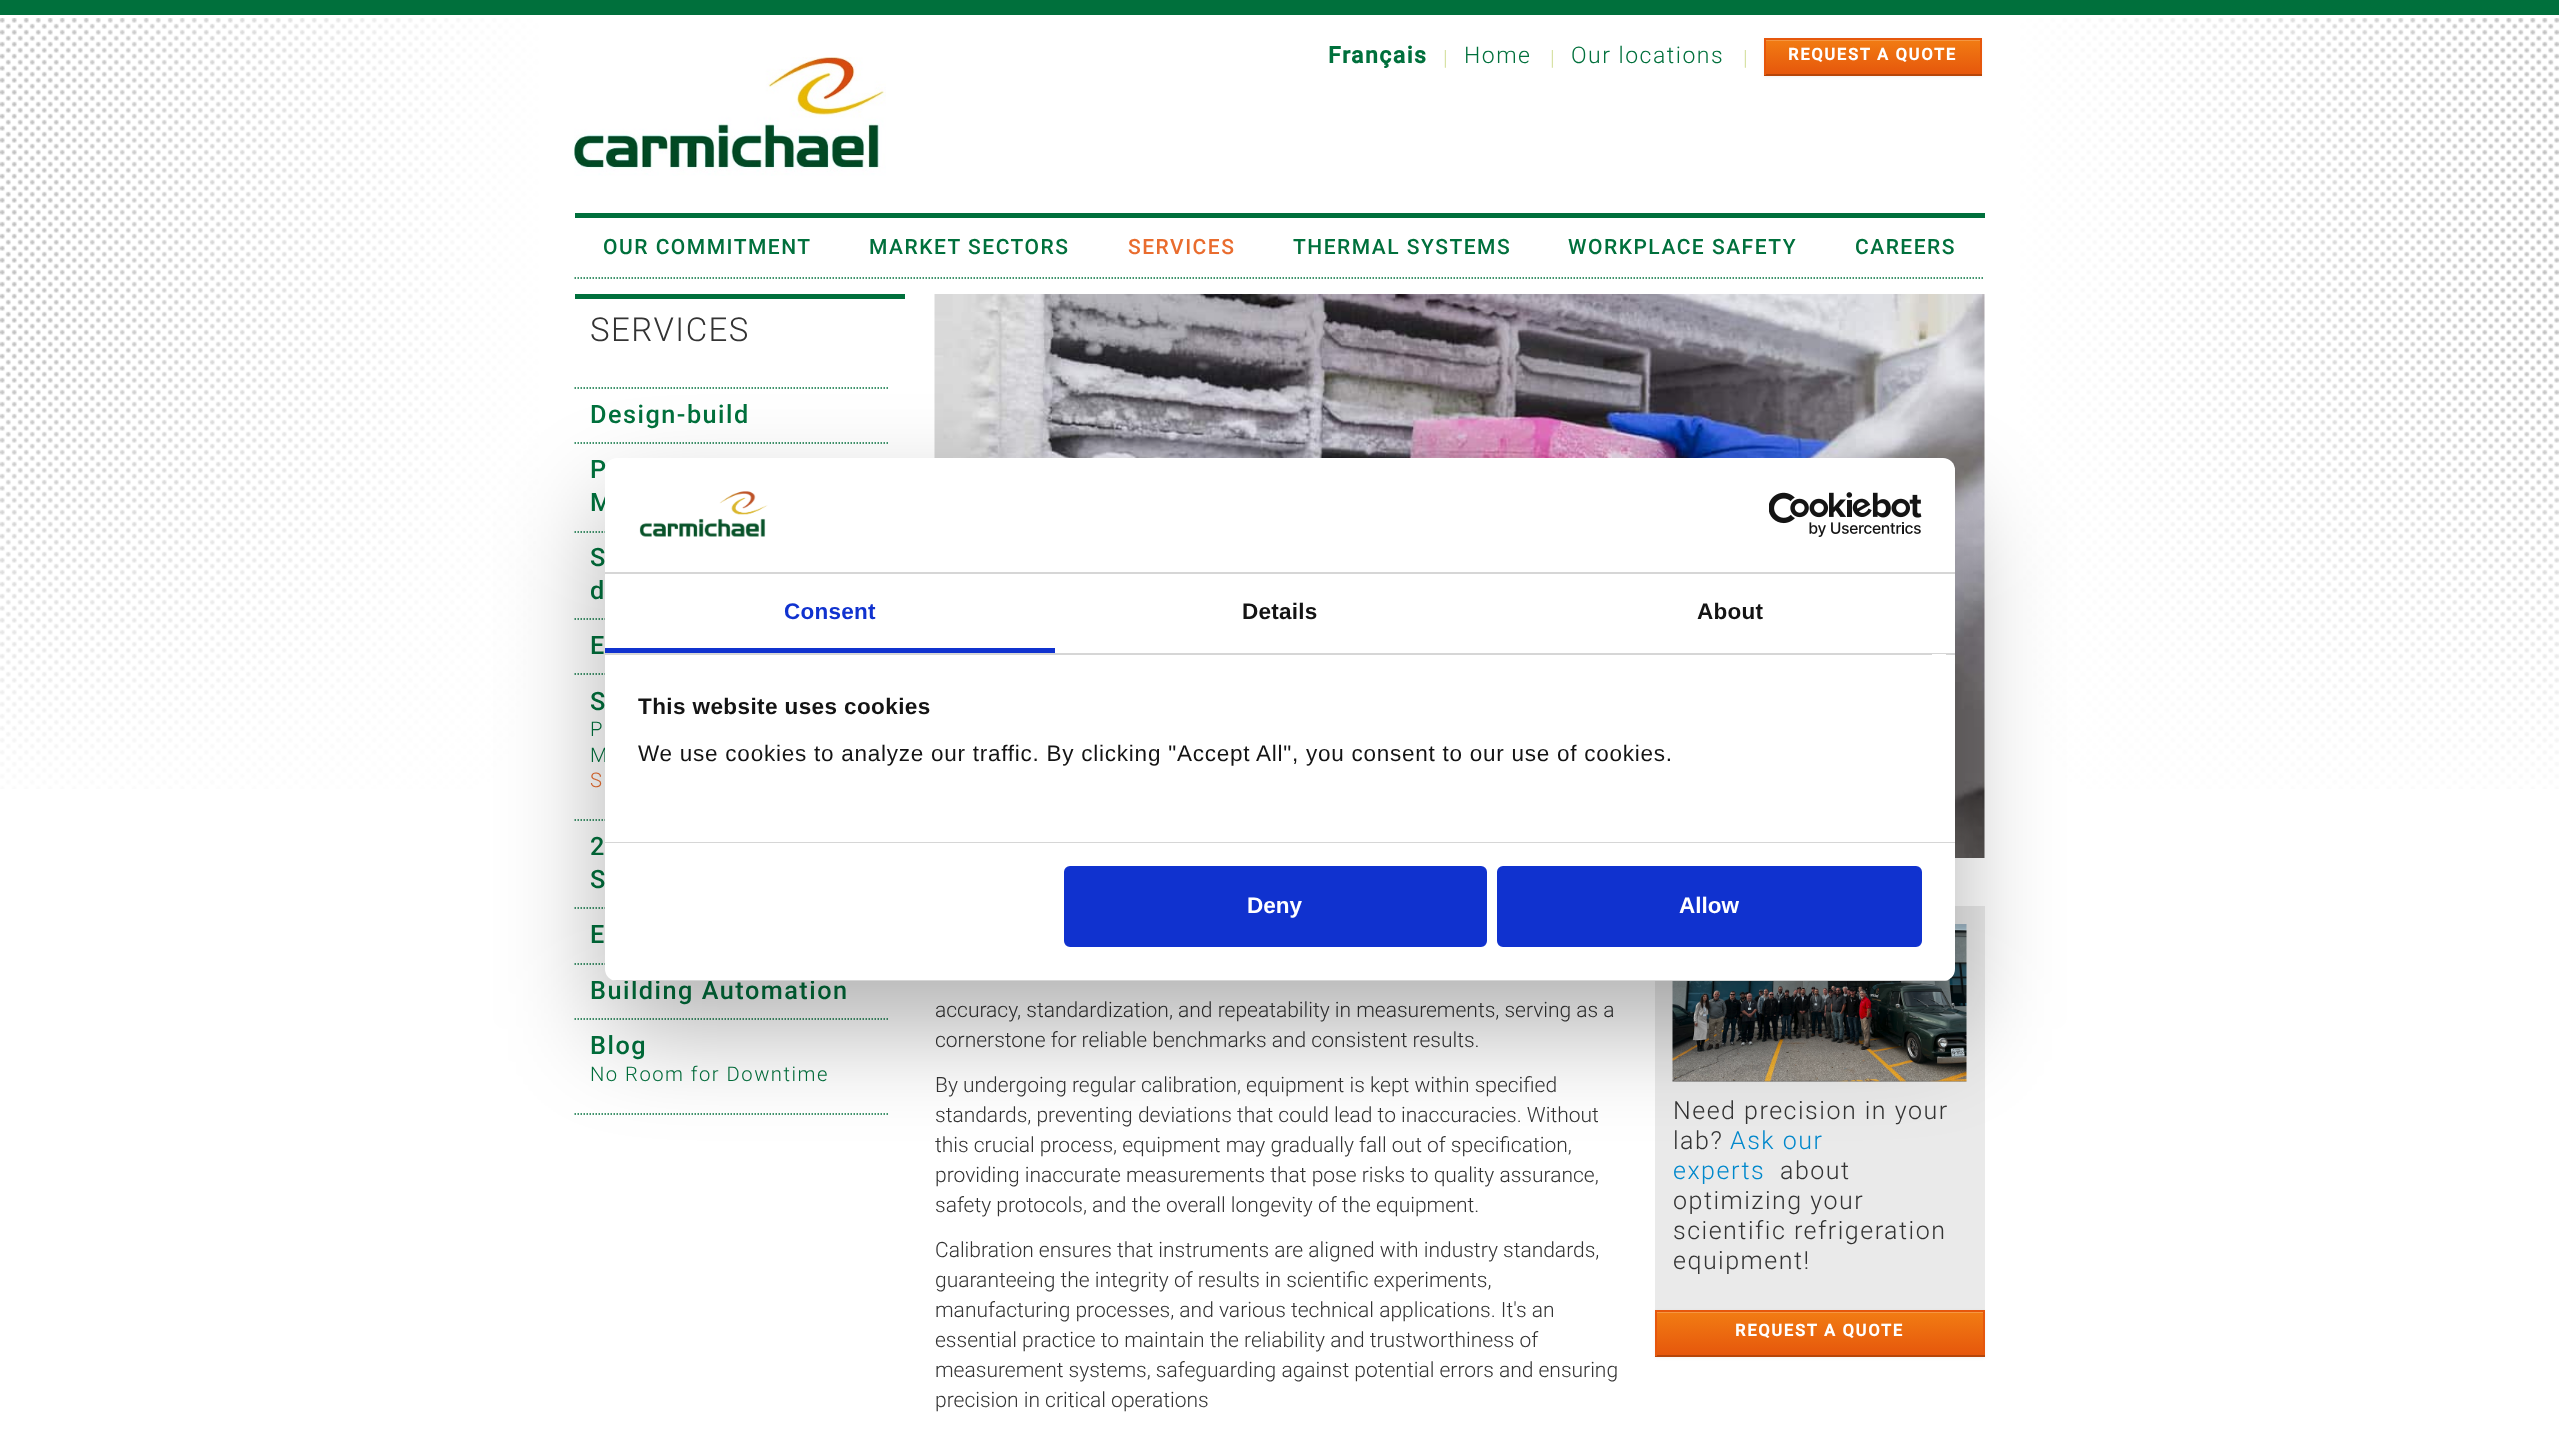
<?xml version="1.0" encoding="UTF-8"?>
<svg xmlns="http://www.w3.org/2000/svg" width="2559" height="1438">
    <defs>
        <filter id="blur1" x="-50%" y="-200%" width="200%" height="500%"><feGaussianBlur stdDeviation="1.5"/></filter>
        <linearGradient id="g1" gradientUnits="userSpaceOnUse" x1="1873" y1="39" x2="1873" y2="74"><stop offset="0" stop-color="#F27D13"/><stop offset="1" stop-color="#E6570C"/></linearGradient>
        <linearGradient id="g2" gradientUnits="userSpaceOnUse" x1="1820" y1="1311" x2="1820" y2="1355"><stop offset="0" stop-color="#F27D13"/><stop offset="1" stop-color="#E6570C"/></linearGradient>
        <filter id="blur2" x="-50%" y="-200%" width="200%" height="500%"><feGaussianBlur stdDeviation="51"/></filter>
        <clipPath id="clip1"><rect x="605" y="458" width="1350" height="523" rx="12"/></clipPath>
    </defs>
    <rect width="100%" height="100%" fill="#FFFFFF"/>
    <image x="0" y="18" width="2559" height="771" href="img_01.png"/>
    <rect x="0" y="0" width="2559" height="15" fill="#00703C"/>
    <image x="574" y="57" width="312" height="119" href="img_02.png"/>
    <text x="1328" y="63" font-family="Roboto" font-size="23" font-weight="700" letter-spacing="1.5" fill="#00703C">Français</text>
    <text x="1443" y="65" font-family="Roboto" font-size="21" font-weight="300" letter-spacing="1.5" fill="#D4DF9C">|</text>
    <text x="1464" y="63" font-family="Roboto" font-size="23" font-weight="300" letter-spacing="1.5" fill="#00703C">Home</text>
    <text x="1550" y="65" font-family="Roboto" font-size="21" font-weight="300" letter-spacing="1.5" fill="#D4DF9C">|</text>
    <text x="1571" y="63" font-family="Roboto" font-size="23" font-weight="300" letter-spacing="1.5" fill="#00703C">Our locations</text>
    <text x="1743" y="65" font-family="Roboto" font-size="21" font-weight="300" letter-spacing="1.5" fill="#D4DF9C">|</text>
    <rect x="1764" y="39" width="218" height="38" fill="#000000" fill-opacity="0.05" filter="url(#blur1)"/>
    <rect x="1766" y="41" width="214" height="33" fill="url(#g1)"/>
    <rect x="1766" y="40" width="214" height="1" fill="#F49642"/>
    <rect x="1764" y="38" width="218" height="2" fill="#E6570C"/>
    <rect x="1980" y="38" width="2" height="37" fill="#E6570C"/>
    <rect x="1764" y="74" width="218" height="2" fill="#B64509"/>
    <rect x="1764" y="38" width="2" height="37" fill="#E6570C"/>
    <text x="1788" y="60" font-family="Roboto" font-size="16.5" font-weight="700" letter-spacing="1.75" fill="#FFFFFF">REQUEST A QUOTE</text>
    <rect x="575" y="213" width="1410" height="5" fill="#00703C"/>
    <path d="M 574.5 278 H 1984.5" fill="none" stroke="#00703C" stroke-width="1.5" stroke-dasharray="1.5 1.5"/>
    <text x="603" y="254" font-family="Roboto" font-size="21" font-weight="500" letter-spacing="1.5" fill="#00703C">OUR COMMITMENT</text>
    <text x="869" y="254" font-family="Roboto" font-size="21" font-weight="500" letter-spacing="1.5" fill="#00703C">MARKET SECTORS</text>
    <text x="1128" y="254" font-family="Roboto" font-size="21" font-weight="500" letter-spacing="1.5" fill="#E96C2E">SERVICES</text>
    <text x="1293" y="254" font-family="Roboto" font-size="21" font-weight="500" letter-spacing="1.5" fill="#00703C">THERMAL SYSTEMS</text>
    <text x="1568" y="254" font-family="Roboto" font-size="21" font-weight="500" letter-spacing="1.5" fill="#00703C">WORKPLACE SAFETY</text>
    <text x="1855" y="254" font-family="Roboto" font-size="21" font-weight="500" letter-spacing="1.5" fill="#00703C">CAREERS</text>
    <rect x="575" y="294" width="330" height="5" fill="#00703C"/>
    <text x="590" y="341" font-family="Roboto" font-size="33" font-weight="300" letter-spacing="1.5" fill="#333333">SERVICES</text>
    <path d="M 574.5 388 H 889.5" fill="none" stroke="#00703C" stroke-width="1.5" stroke-dasharray="1.5 1.5"/>
    <text x="590" y="423" font-family="Roboto" font-size="25.25" font-weight="500" letter-spacing="1.5" fill="#00703C">Design-build</text>
    <path d="M 574.5 443 H 889.5" fill="none" stroke="#00703C" stroke-width="1.5" stroke-dasharray="1.5 1.5"/>
    <text font-family="Roboto" font-size="25.25" font-weight="500" letter-spacing="1.5" fill="#00703C">
        <tspan x="590" y="478">P</tspan>
        <tspan x="590" y="511">M</tspan>
    </text>
    <path d="M 574.5 532 H 889.5" fill="none" stroke="#00703C" stroke-width="1.5" stroke-dasharray="1.5 1.5"/>
    <text font-family="Roboto" font-size="25.25" font-weight="500" letter-spacing="1.5" fill="#00703C">
        <tspan x="590" y="566">S</tspan>
        <tspan x="590" y="599">d</tspan>
    </text>
    <path d="M 574.5 619 H 889.5" fill="none" stroke="#00703C" stroke-width="1.5" stroke-dasharray="1.5 1.5"/>
    <text x="590" y="654" font-family="Roboto" font-size="25.25" font-weight="500" letter-spacing="1.5" fill="#00703C">E</text>
    <path d="M 574.5 674 H 889.5" fill="none" stroke="#00703C" stroke-width="1.5" stroke-dasharray="1.5 1.5"/>
    <text x="590" y="710" font-family="Roboto" font-size="25.25" font-weight="500" letter-spacing="1.5" fill="#00703C">S</text>
    <text font-family="Roboto" font-size="20.2" font-weight="300" letter-spacing="1.5" fill="#00703C">
        <tspan x="590" y="736">P</tspan>
        <tspan x="590" y="762">M</tspan>
    </text>
    <text x="590" y="787" font-family="Roboto" font-size="20.2" font-weight="300" letter-spacing="1.5" fill="#E96C2E">S</text>
    <path d="M 574.5 820 H 889.5" fill="none" stroke="#00703C" stroke-width="1.5" stroke-dasharray="1.5 1.5"/>
    <text font-family="Roboto" font-size="25.25" font-weight="500" letter-spacing="1.5" fill="#00703C">
        <tspan x="590" y="855">2</tspan>
        <tspan x="590" y="888">S</tspan>
    </text>
    <path d="M 574.5 908 H 889.5" fill="none" stroke="#00703C" stroke-width="1.5" stroke-dasharray="1.5 1.5"/>
    <text x="590" y="943" font-family="Roboto" font-size="25.25" font-weight="500" letter-spacing="1.5" fill="#00703C">E</text>
    <path d="M 574.5 964 H 889.5" fill="none" stroke="#00703C" stroke-width="1.5" stroke-dasharray="1.5 1.5"/>
    <text x="590" y="999" font-family="Roboto" font-size="25.25" font-weight="500" letter-spacing="1.5" fill="#00703C">Building Automation</text>
    <path d="M 574.5 1019 H 889.5" fill="none" stroke="#00703C" stroke-width="1.5" stroke-dasharray="1.5 1.5"/>
    <path d="M 574.5 1114 H 889.5" fill="none" stroke="#00703C" stroke-width="1.5" stroke-dasharray="1.5 1.5"/>
    <text x="590" y="1054" font-family="Roboto" font-size="25.25" font-weight="500" letter-spacing="1.5" fill="#00703C">Blog</text>
    <text x="590" y="1081" font-family="Roboto" font-size="20.2" font-weight="300" letter-spacing="1.5" fill="#00703C">No Room for Downtime</text>
    <image x="934" y="294" width="1051" height="564" href="img_03.png"/>
    <text font-family="Roboto" font-size="21" font-weight="300" fill="#333333">
        <tspan x="935" y="1017">accuracy, standardization, and repeatability in measurements, serving as a</tspan>
        <tspan x="935" y="1047">cornerstone for reliable benchmarks and consistent results.</tspan>
    </text>
    <text font-family="Roboto" font-size="21" font-weight="300" fill="#333333">
        <tspan x="935" y="1092">By undergoing regular calibration, equipment is kept within specified</tspan>
        <tspan x="935" y="1122">standards, preventing deviations that could lead to inaccuracies. Without</tspan>
        <tspan x="935" y="1152">this crucial process, equipment may gradually fall out of specification,</tspan>
        <tspan x="935" y="1182">providing inaccurate measurements that pose risks to quality assurance,</tspan>
        <tspan x="935" y="1212">safety protocols, and the overall longevity of the equipment.</tspan>
    </text>
    <text font-family="Roboto" font-size="21" font-weight="300" fill="#333333">
        <tspan x="935" y="1257">Calibration ensures that instruments are aligned with industry standards,</tspan>
        <tspan x="935" y="1287">guaranteeing the integrity of results in scientific experiments,</tspan>
        <tspan x="935" y="1317">manufacturing processes, and various technical applications. It's an</tspan>
        <tspan x="935" y="1347">essential practice to maintain the reliability and trustworthiness of</tspan>
        <tspan x="935" y="1377">measurement systems, safeguarding against potential errors and ensuring</tspan>
        <tspan x="935" y="1407">precision in critical operations</tspan>
    </text>
    <rect x="1655" y="906" width="330" height="404" fill="#EAEAEA"/>
    <image x="1672" y="924" width="295" height="158" href="img_04.png"/>
    <text font-family="Roboto" font-size="25" font-weight="300" letter-spacing="1.5" fill="#333333">
        <tspan x="1673" y="1119">Need precision in your</tspan>
        <tspan x="1673" y="1149">lab?</tspan>
    </text>
    <text x="1730" y="1149" font-family="Roboto" font-size="25" font-weight="300" letter-spacing="1.5" fill="#0088CC">Ask our</text>
    <text x="1673" y="1179" font-family="Roboto" font-size="25" font-weight="300" letter-spacing="1.5" fill="#0088CC">experts</text>
    <text x="1780" y="1179" font-family="Roboto" font-size="25" font-weight="300" letter-spacing="1.5" fill="#333333">about</text>
    <text font-family="Roboto" font-size="25" font-weight="300" letter-spacing="1.5" fill="#333333">
        <tspan x="1673" y="1209">optimizing your</tspan>
        <tspan x="1673" y="1239">scientific refrigeration</tspan>
        <tspan x="1673" y="1269">equipment!</tspan>
    </text>
    <rect x="1655" y="1311" width="330" height="47" fill="#000000" fill-opacity="0.05" filter="url(#blur1)"/>
    <rect x="1657" y="1313" width="326" height="42" fill="url(#g2)"/>
    <rect x="1656" y="1312" width="327" height="1" fill="#F59742"/>
    <rect x="1655" y="1310" width="330" height="2" fill="#E6570C"/>
    <rect x="1983" y="1310" width="2" height="46" fill="#E6570C"/>
    <rect x="1655" y="1355" width="330" height="2" fill="#B64509"/>
    <rect x="1655" y="1310" width="2" height="46" fill="#E6570C"/>
    <text x="1735" y="1336" font-family="Roboto" font-size="16.5" font-weight="700" letter-spacing="1.75" fill="#FFFFFF">REQUEST A QUOTE</text>
    <rect x="605" y="506" width="1350" height="523" rx="12" fill="#000000" fill-opacity="0.3" filter="url(#blur2)"/>
    <rect x="605" y="458" width="1350" height="523" rx="12" fill="#FFFFFF"/>
    <rect x="605" y="572" width="1350" height="2" fill="#D6D6D6"/>
    <image x="639" y="491" width="129" height="46" href="img_05.png"/>
    <image x="1769" y="492" width="153" height="45" href="img_06.png"/>
    <rect x="605" y="653" width="1350" height="2" fill="#D6D6D6"/>
    <rect x="605" y="648" width="450" height="5" fill="#1032CF"/>
    <text x="784" y="619" font-family="Liberation Sans" font-size="22.5" font-weight="700" letter-spacing="0.25" fill="#1032CF">Consent</text>
    <text x="1242" y="619" font-family="Liberation Sans" font-size="22.5" font-weight="700" letter-spacing="0.25" fill="#141414">Details</text>
    <text x="1697" y="619" font-family="Liberation Sans" font-size="22.5" font-weight="700" letter-spacing="0.25" fill="#141414">About</text>
    <rect x="605" y="842" width="1350" height="1" fill="#D6D6D6"/>
    <rect x="1932" y="654" width="14" height="1" fill="#FFFFFF"/>
    <text x="638" y="714" font-family="Liberation Sans" font-size="22.5" font-weight="700" letter-spacing="0.4" fill="#141414">This website uses cookies</text>
    <text x="638" y="761" font-family="Liberation Sans" font-size="22.5" letter-spacing="0.75" fill="#141414">We use cookies to analyze our traffic. By clicking "Accept All", you consent to our use of cookies.</text>
    <g clip-path="url(#clip1)">
        <rect x="605" y="980" width="1350" height="1" fill="#D6D6D6"/>
    </g>
    <rect x="1065.5" y="867.5" width="420" height="78" rx="4.5" fill="#1032CF" stroke="#1032CF" stroke-width="3"/>
    <text x="1247" y="913" font-family="Liberation Sans" font-size="22.5" font-weight="700" fill="#FFFFFF">Deny</text>
    <rect x="1498.5" y="867.5" width="422" height="78" rx="4.5" fill="#1032CF" stroke="#1032CF" stroke-width="3"/>
    <text x="1679" y="913" font-family="Liberation Sans" font-size="22.5" font-weight="700" fill="#FFFFFF">Allow</text>
</svg>
